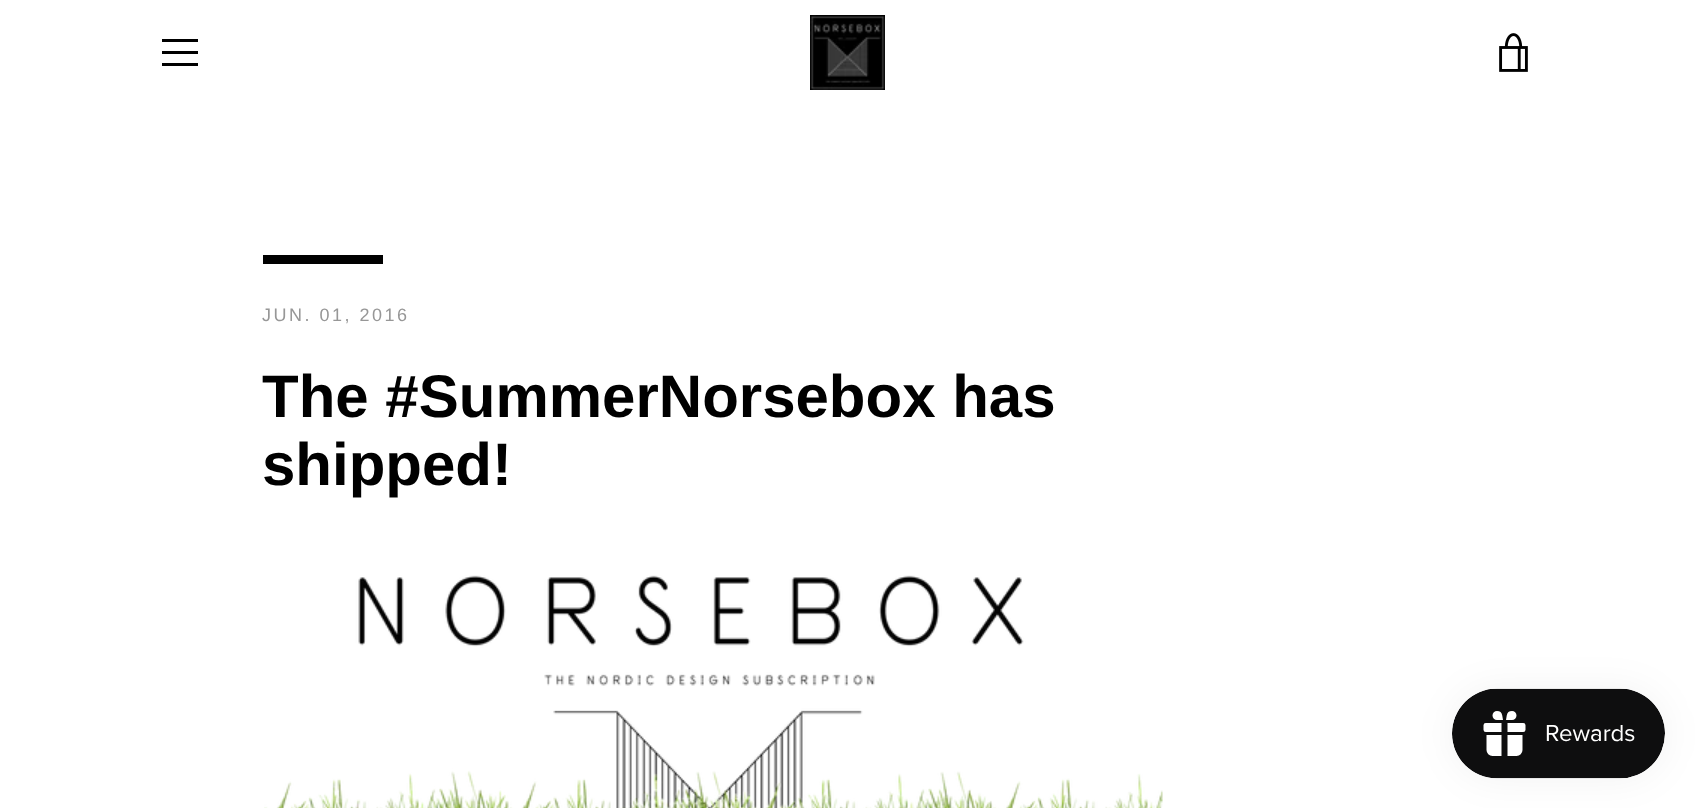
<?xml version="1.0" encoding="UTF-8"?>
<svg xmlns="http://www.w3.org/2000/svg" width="1695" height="808">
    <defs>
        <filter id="blur1" x="-50%" y="-200%" width="200%" height="500%"><feGaussianBlur stdDeviation="19"/></filter>
    </defs>
    <rect width="100%" height="100%" fill="#FFFFFF"/>
    <rect x="162" y="39" width="36" height="3" fill="#000000"/>
    <rect x="162" y="51" width="36" height="3" fill="#000000"/>
    <rect x="162" y="63" width="36" height="3" fill="#000000"/>
    <image x="810" y="15" width="75" height="75" href="img_01.png"/>
    <image x="1499" y="33" width="29" height="39" href="img_02.png"/>
    <rect x="263" y="255" width="120" height="9" fill="#000000"/>
    <text x="262" y="321" font-family="Liberation Sans" font-size="18" letter-spacing="2.5" fill="#979797">JUN. 01, 2016</text>
    <text font-family="Liberation Sans" font-size="60" font-weight="700" fill="#000000">
        <tspan x="262" y="417">The #SummerNorsebox has</tspan>
        <tspan x="262" y="485">shipped!</tspan>
    </text>
    <image x="264" y="575" width="899" height="233" href="img_03.png"/>
    <rect x="1452" y="689" width="213" height="90" rx="45" fill="#000000" fill-opacity="0.05" filter="url(#blur1)"/>
    <image x="1452" y="688" width="213" height="91" href="img_04.png"/>
</svg>
